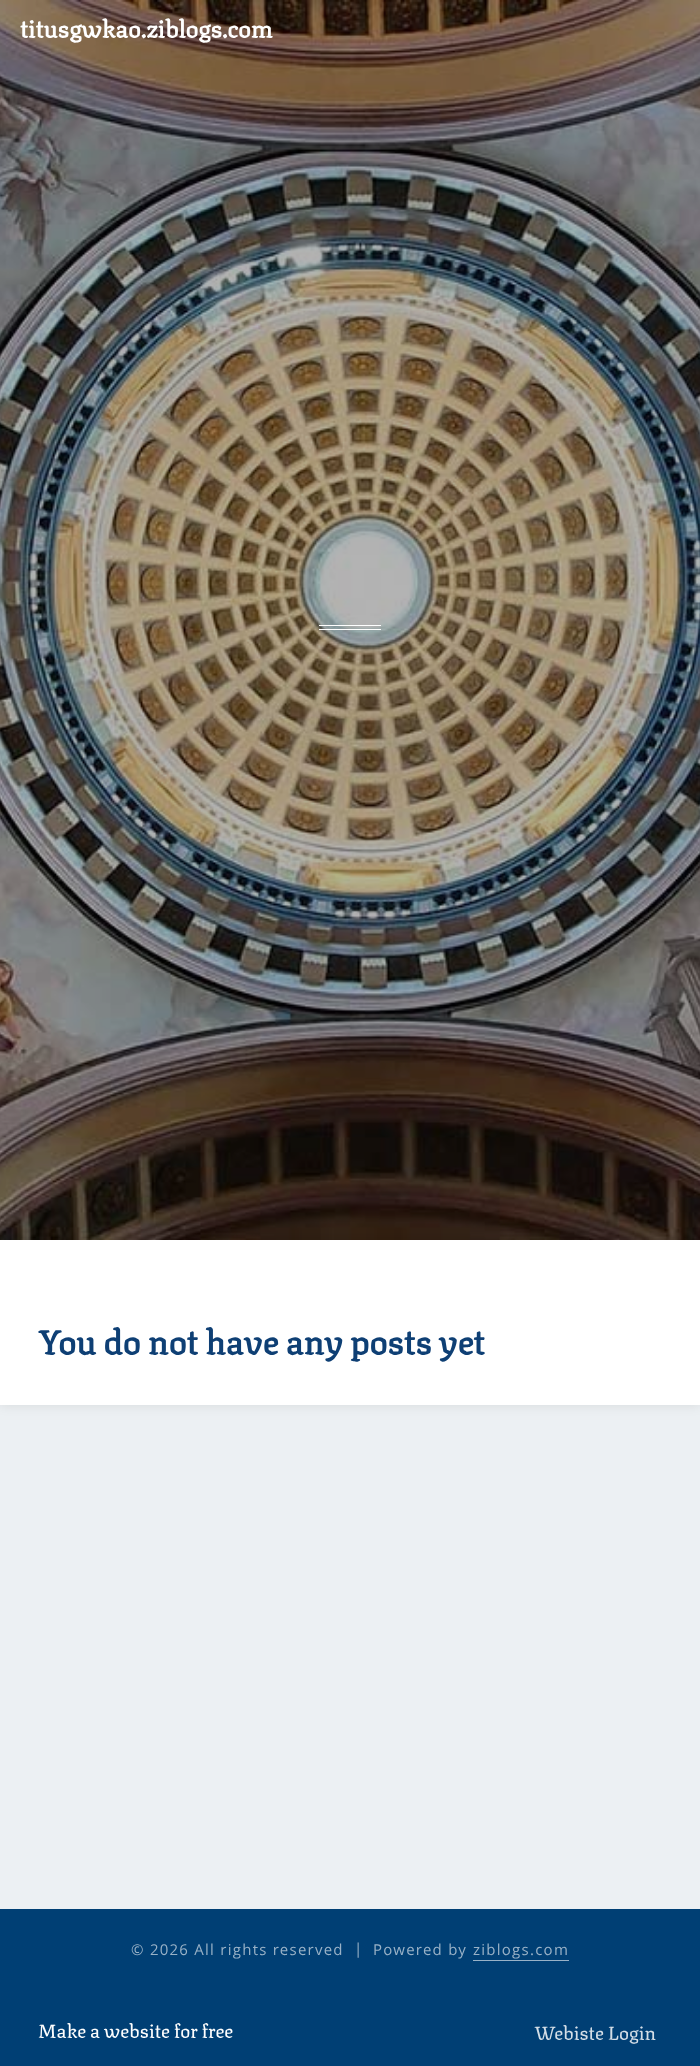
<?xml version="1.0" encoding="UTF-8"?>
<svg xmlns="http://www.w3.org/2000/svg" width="700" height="2066">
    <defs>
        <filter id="blur1" x="-50%" y="-200%" width="200%" height="500%"><feGaussianBlur stdDeviation="6"/></filter>
    </defs>
    <rect width="100%" height="100%" fill="#ECF0F3"/>
    <image x="0" y="0" width="700" height="1240" href="img_01.png"/>
    <text x="20" y="38" font-family="Texturina" font-size="23.75" font-weight="700" fill="#FFFFFF">titusgwkao.ziblogs.com</text>
    <rect x="319" y="625" width="62" height="1" fill="#FFFFFF"/>
    <rect x="319" y="629" width="62" height="1" fill="#FFFFFF"/>
    <rect x="0" y="1240" width="700" height="165" fill="#000000" fill-opacity="0.1" filter="url(#blur1)"/>
    <rect x="0" y="1240" width="700" height="165" fill="#FFFFFF"/>
    <text x="38" y="1355" font-family="Texturina" font-size="33.75" font-weight="700" fill="#0E3F74">You do not have any posts yet</text>
    <rect x="0" y="1909" width="700" height="157" fill="#003F74"/>
    <text x="131" y="1955" font-family="Open Sans" font-size="15" letter-spacing="1.25" fill="#99B2C7">© 2026 All rights reserved</text>
    <text x="354" y="1954" font-family="Open Sans" font-size="15" letter-spacing="1.25" fill="#99B2C7">|</text>
    <text x="373" y="1955" font-family="Open Sans" font-size="15" letter-spacing="1.25" fill="#99B2C7">Powered by</text>
    <text x="473" y="1955" font-family="Open Sans" font-size="15" letter-spacing="1.25" fill="#99B2C7">ziblogs.com</text>
    <rect x="473" y="1960" width="96" height="1" fill="#99B2C7"/>
    <text x="38" y="2038" font-family="Texturina" font-size="18.75" font-weight="500" fill="#FFFFFF">Make a website for free</text>
    <text x="534" y="2040" font-family="Texturina" font-size="18.75" font-weight="500" fill="#D4DEE7">Webiste Login</text>
</svg>
